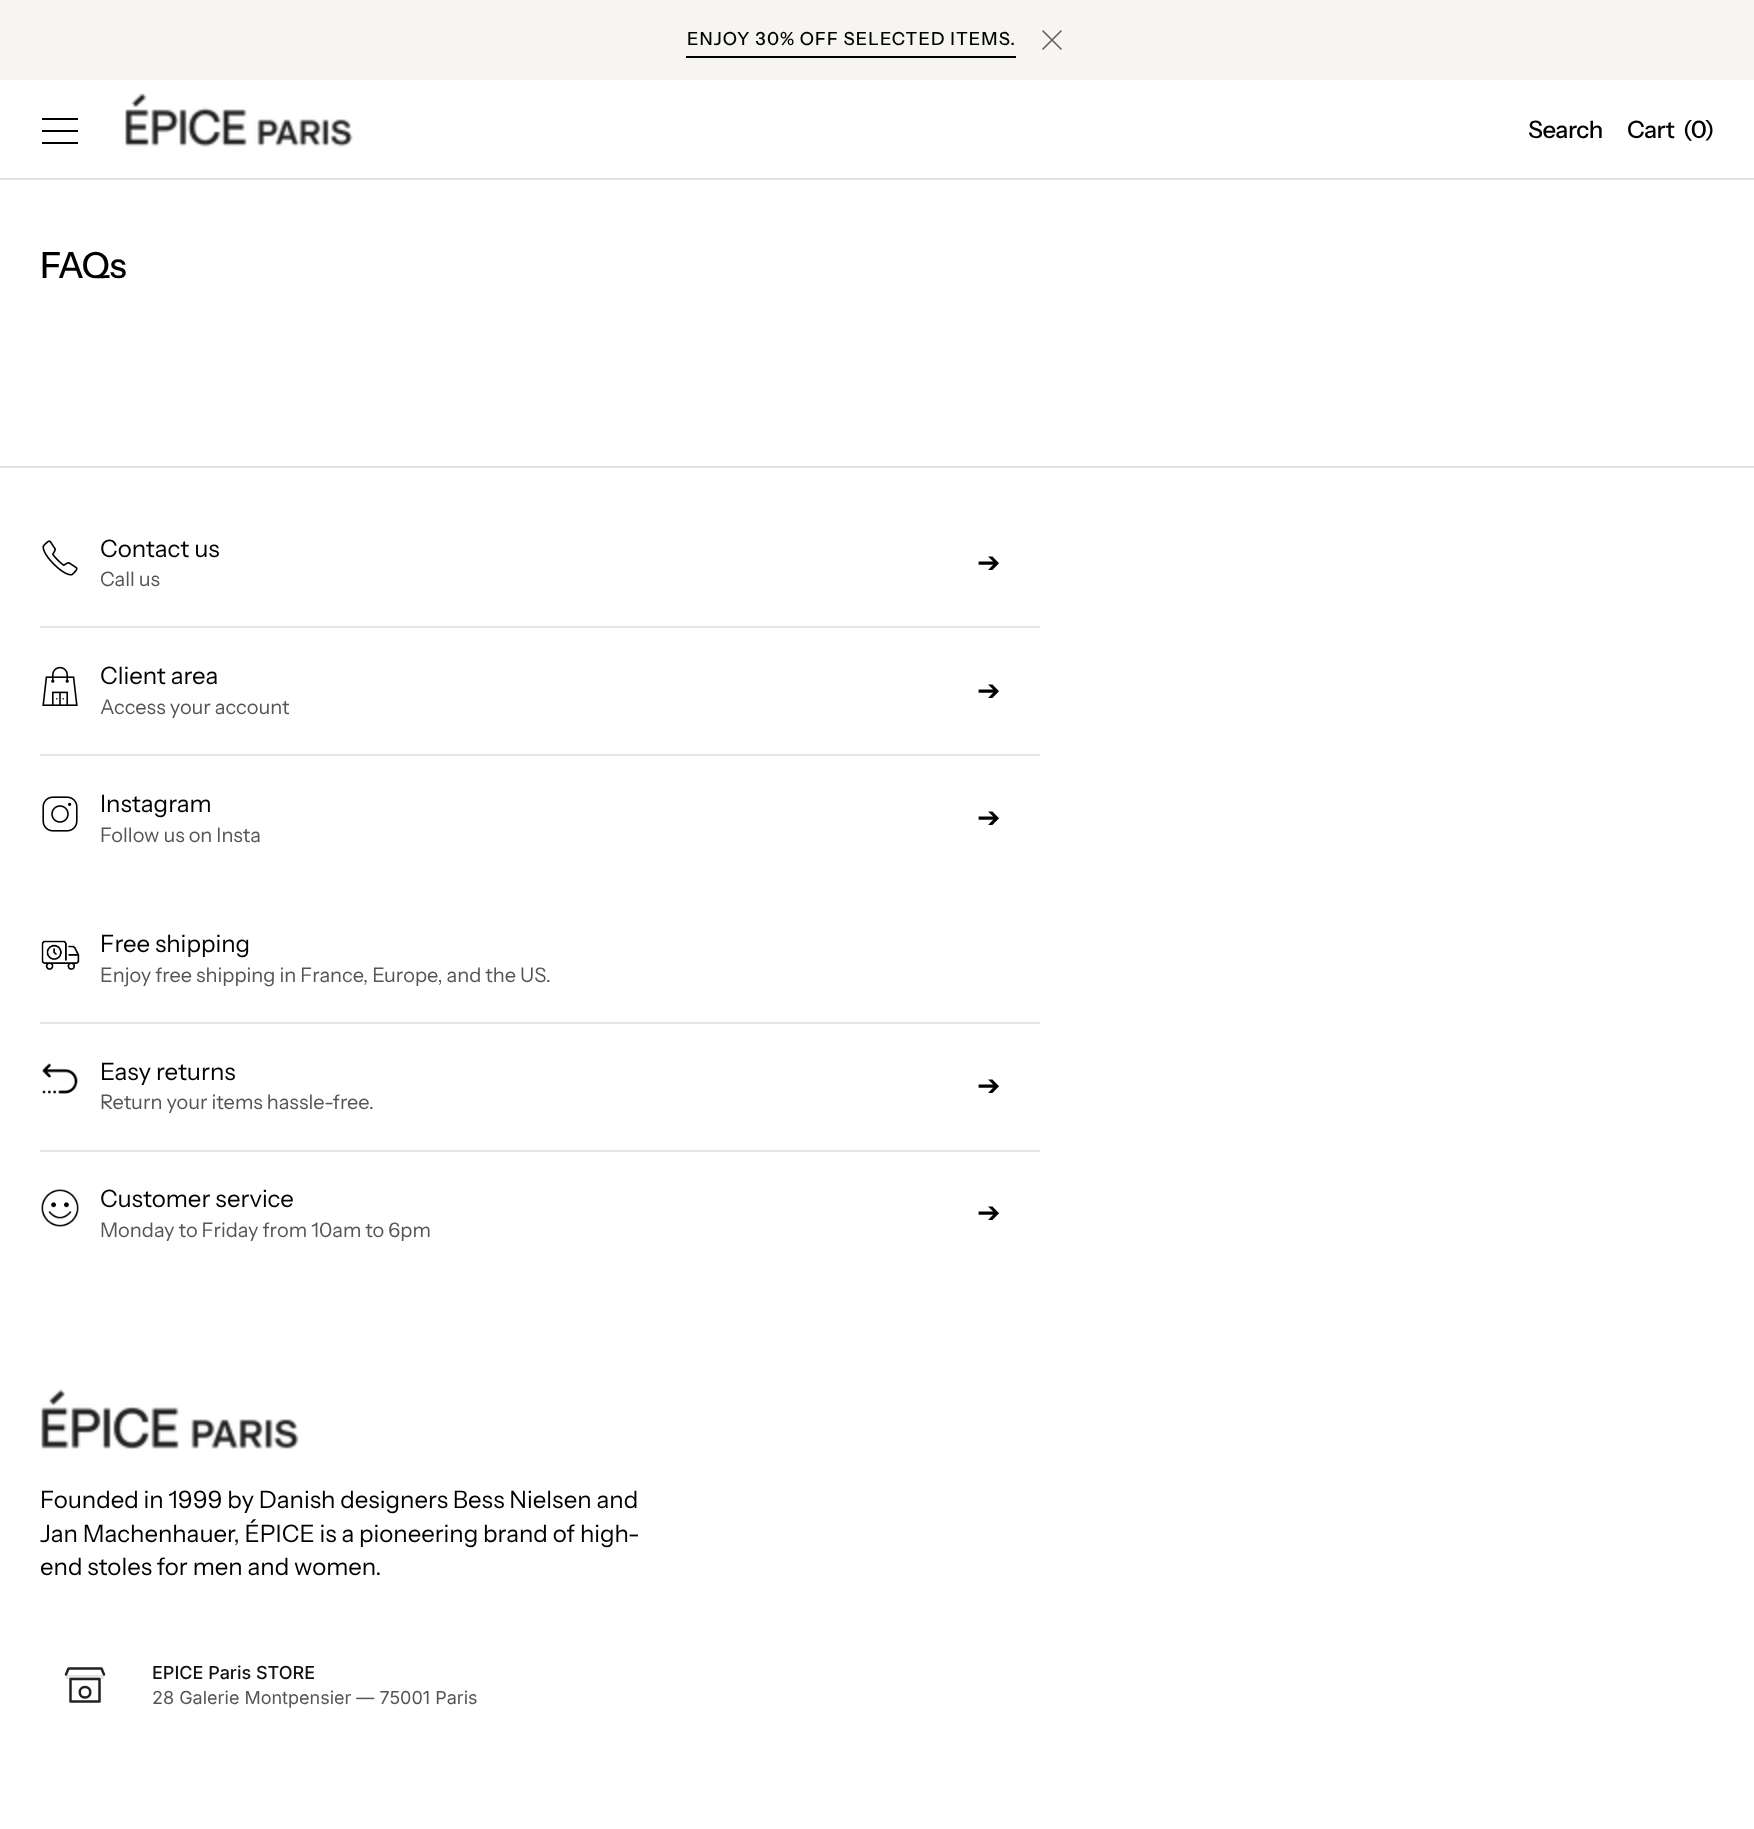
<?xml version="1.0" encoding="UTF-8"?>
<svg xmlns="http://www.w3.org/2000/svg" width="1754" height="1829">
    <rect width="100%" height="100%" fill="#FFFFFF"/>
    <rect x="0" y="0" width="1754" height="80" fill="#F7F5F2"/>
    <text x="687" y="45" font-family="Instrument Sans" font-size="18" font-weight="500" letter-spacing="1.1" fill="#000000">ENJOY 30% OFF SELECTED ITEMS.</text>
    <rect x="686" y="56" width="330" height="2" fill="#000000"/>
    <path d="M 1061 31 L 1043 49 M 1061 49 L 1043 31" fill="none" stroke="#5E5E5E" stroke-width="1.6" stroke-linecap="round" stroke-linejoin="round"/>
    <rect x="42" y="118" width="36" height="2" fill="#000000"/>
    <rect x="42" y="130" width="36" height="2" fill="#000000"/>
    <rect x="42" y="142" width="36" height="2" fill="#000000"/>
    <image x="124" y="93" width="229" height="54" href="img_01.png"/>
    <text x="1528" y="138" font-family="Instrument Sans" font-size="24" font-weight="500" letter-spacing="-0.5" fill="#000000">Search</text>
    <text x="1627" y="138" font-family="Instrument Sans" font-size="24" font-weight="500" letter-spacing="-0.5" fill="#000000">Cart</text>
    <text x="1683" y="138" font-family="Instrument Sans" font-size="24" font-weight="500" letter-spacing="-0.5" fill="#000000">(0)</text>
    <rect x="0" y="178" width="1754" height="2" fill="#E1E1E1"/>
    <text x="40" y="278" font-family="Instrument Sans" font-size="36" font-weight="500" letter-spacing="-1" fill="#000000">FAQs</text>
    <rect x="0" y="466" width="1754" height="2" fill="#E1E1E1"/>
    <image x="42" y="540" width="36" height="36" href="img_02.png"/>
    <text x="100" y="557" font-family="Instrument Sans" font-size="24" fill="#000000">Contact us</text>
    <text x="100" y="586" font-family="Instrument Sans" font-size="20" fill="#555555">Call us</text>
    <text x="977" y="572" font-family="DejaVu Sans" font-size="28" fill="#000000">➔</text>
    <rect x="40" y="626" width="1000" height="2" fill="#E5E5E5"/>
    <image x="42" y="666" width="36" height="40" href="img_03.png"/>
    <text x="100" y="684" font-family="Instrument Sans" font-size="24" fill="#000000">Client area</text>
    <text x="100" y="714" font-family="Instrument Sans" font-size="20" fill="#555555">Access your account</text>
    <text x="977" y="700" font-family="DejaVu Sans" font-size="28" fill="#000000">➔</text>
    <rect x="40" y="754" width="1000" height="2" fill="#E5E5E5"/>
    <image x="42" y="796" width="36" height="36" href="img_04.png"/>
    <text x="100" y="812" font-family="Instrument Sans" font-size="24" fill="#000000">Instagram</text>
    <text x="100" y="842" font-family="Instrument Sans" font-size="20" fill="#555555">Follow us on Insta</text>
    <text x="977" y="827" font-family="DejaVu Sans" font-size="28" fill="#000000">➔</text>
    <image x="41" y="940" width="39" height="30" href="img_05.png"/>
    <text x="100" y="952" font-family="Instrument Sans" font-size="24" fill="#000000">Free shipping</text>
    <text x="100" y="982" font-family="Instrument Sans" font-size="20" fill="#555555">Enjoy free shipping in France, Europe, and the US.</text>
    <rect x="40" y="1022" width="1000" height="2" fill="#E5E5E5"/>
    <image x="42" y="1063" width="36" height="31" href="img_06.png"/>
    <text x="100" y="1080" font-family="Instrument Sans" font-size="24" fill="#000000">Easy returns</text>
    <text x="100" y="1109" font-family="Instrument Sans" font-size="20" fill="#555555">Return your items hassle-free.</text>
    <text x="977" y="1095" font-family="DejaVu Sans" font-size="28" fill="#000000">➔</text>
    <rect x="40" y="1150" width="1000" height="2" fill="#E5E5E5"/>
    <image x="41" y="1189" width="38" height="38" href="img_07.png"/>
    <text x="100" y="1207" font-family="Instrument Sans" font-size="24" fill="#000000">Customer service</text>
    <text x="100" y="1237" font-family="Instrument Sans" font-size="20" fill="#555555">Monday to Friday from 10am to 6pm</text>
    <text x="977" y="1222" font-family="DejaVu Sans" font-size="28" fill="#000000">➔</text>
    <image x="41" y="1389" width="258" height="61" href="img_08.png"/>
    <text font-family="Instrument Sans" font-size="24" fill="#000000">
        <tspan x="40" y="1508">Founded in 1999 by Danish designers Bess Nielsen and</tspan>
        <tspan x="40" y="1542">Jan Machenhauer, ÉPICE is a pioneering brand of high-</tspan>
        <tspan x="40" y="1575">end stoles for men and women.</tspan>
    </text>
    <rect x="66" y="1675" width="38" height="4" fill="#E4E4E4"/>
    <path d="M 70.5 1679 V 1701.5 H 99.5 V 1679 Z M 85 1697.5 C 78 1697.5 78 1687 85 1687 C 92 1687 92 1697.5 85 1697.5 Z M 66 1674.5 L 68.5 1668.5 H 101.5 L 104 1674.5" fill="none" stroke="#222222" stroke-width="2.5" stroke-linecap="round" stroke-linejoin="round"/>
    <text x="152" y="1679" font-family="Inter" font-size="18" font-weight="500" fill="#111111">EPICE Paris STORE</text>
    <text x="152" y="1704" font-family="Inter" font-size="18" fill="#555555">28 Galerie Montpensier — 75001 Paris</text>
</svg>
